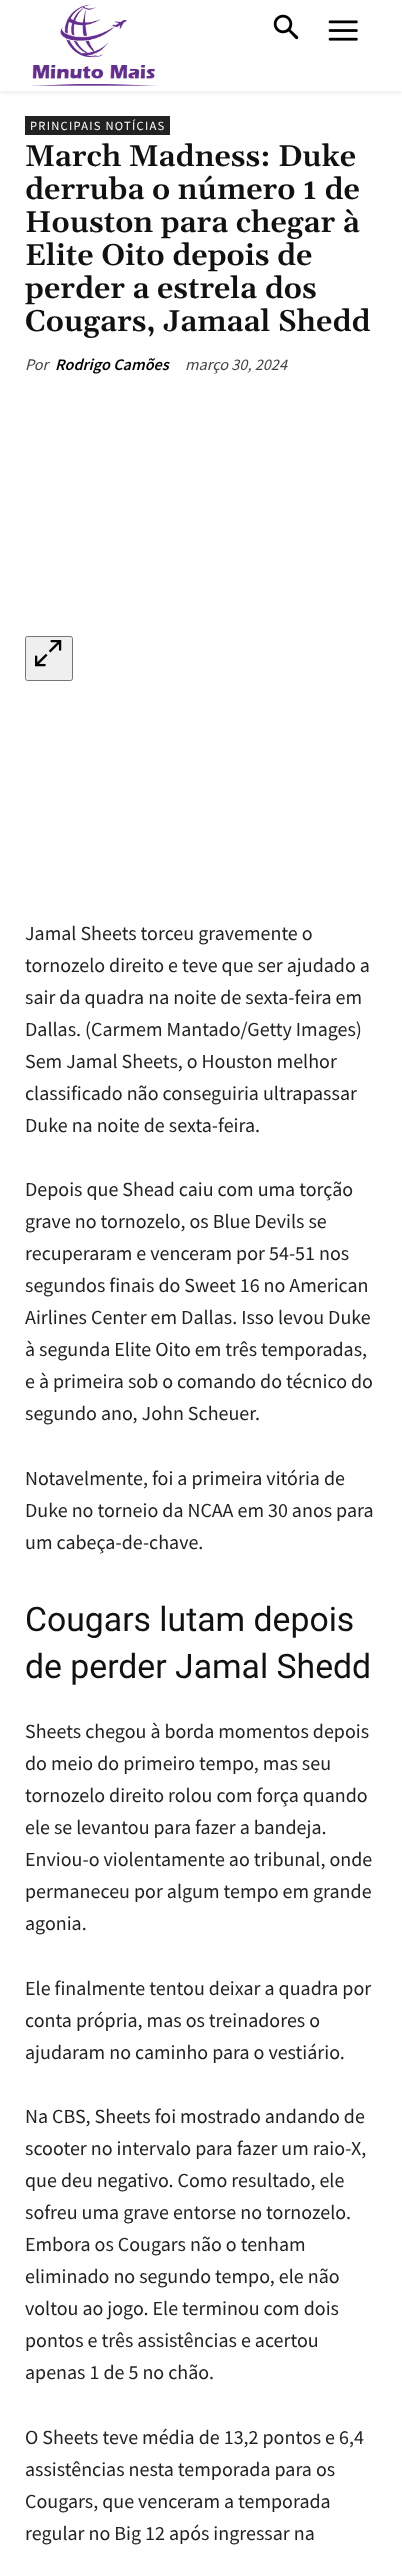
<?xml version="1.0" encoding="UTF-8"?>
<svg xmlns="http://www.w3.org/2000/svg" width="402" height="2562">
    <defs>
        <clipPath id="clip1"><rect x="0" y="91" width="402" height="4"/></clipPath>
        <filter id="blur1" x="-50%" y="-200%" width="200%" height="500%"><feGaussianBlur stdDeviation="2.5"/></filter>
    </defs>
    <rect width="100%" height="100%" fill="#FFFFFF"/>
    <image x="31" y="4" width="125" height="82" href="img_01.png"/>
    <image x="273" y="14" width="26" height="26" href="img_02.png"/>
    <image x="328" y="20" width="30" height="21" href="img_03.png"/>
    <g clip-path="url(#clip1)">
        <rect x="0" y="3" width="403" height="91" fill="#000000" fill-opacity="0.06" filter="url(#blur1)"/>
    </g>
    <rect x="25" y="116" width="145" height="19" fill="#222222"/>
    <text x="30" y="130" font-family="Source Sans Pro" font-size="12.5" letter-spacing="1.25" fill="#FFFFFF">PRINCIPAIS NOTÍCIAS</text>
    <text font-family="Gelasio" font-size="30" font-weight="600" fill="#111111">
        <tspan x="25" y="166">March Madness: Duke</tspan>
        <tspan x="25" y="199">derruba o número 1 de</tspan>
        <tspan x="25" y="232">Houston para chegar à</tspan>
        <tspan x="25" y="265">Elite Oito depois de</tspan>
        <tspan x="25" y="298">perder a estrela dos</tspan>
        <tspan x="25" y="331">Cougars, Jamaal Shedd</tspan>
    </text>
    <text x="25" y="370" font-family="Source Sans Pro" font-size="16.25" font-style="italic" fill="#444444">Por</text>
    <text x="55" y="370" font-family="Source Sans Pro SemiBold" font-size="16.25" font-weight="600" font-style="italic" fill="#000000">Rodrigo Camões</text>
    <text x="185" y="370" font-family="Source Sans Pro" font-size="16.25" font-style="italic" fill="#444444">março 30, 2024</text>
    <rect x="25.5" y="636.5" width="47" height="44" rx="2" fill="#EFEFEF" stroke="#767676"/>
    <image x="35" y="640" width="27" height="27" href="img_04.png"/>
    <text font-family="Source Sans Pro" font-size="20" fill="#222222">
        <tspan x="25" y="940">Jamal Sheets torceu gravemente o</tspan>
        <tspan x="25" y="972">tornozelo direito e teve que ser ajudado a</tspan>
        <tspan x="25" y="1004">sair da quadra na noite de sexta-feira em</tspan>
        <tspan x="25" y="1036">Dallas. (Carmem Mantado/Getty Images)</tspan>
        <tspan x="25" y="1068">Sem Jamal Sheets, o Houston melhor</tspan>
        <tspan x="25" y="1100">classificado não conseguiria ultrapassar</tspan>
        <tspan x="25" y="1132">Duke na noite de sexta-feira.</tspan>
    </text>
    <text font-family="Source Sans Pro" font-size="20" fill="#222222">
        <tspan x="25" y="1196">Depois que Shead caiu com uma torção</tspan>
        <tspan x="25" y="1228">grave no tornozelo, os Blue Devils se</tspan>
        <tspan x="25" y="1260">recuperaram e venceram por 54-51 nos</tspan>
        <tspan x="25" y="1292">segundos finais do Sweet 16 no American</tspan>
        <tspan x="25" y="1324">Airlines Center em Dallas. Isso levou Duke</tspan>
        <tspan x="25" y="1356">à segunda Elite Oito em três temporadas,</tspan>
        <tspan x="25" y="1388">e à primeira sob o comando do técnico do</tspan>
        <tspan x="25" y="1420">segundo ano, John Scheuer.</tspan>
    </text>
    <text font-family="Source Sans Pro" font-size="20" fill="#222222">
        <tspan x="25" y="1485">Notavelmente, foi a primeira vitória de</tspan>
        <tspan x="25" y="1517">Duke no torneio da NCAA em 30 anos para</tspan>
        <tspan x="25" y="1549">um cabeça-de-chave.</tspan>
    </text>
    <text font-family="Roboto" font-size="33.75" fill="#111111">
        <tspan x="25" y="1631">Cougars lutam depois</tspan>
        <tspan x="25" y="1678">de perder Jamal Shedd</tspan>
    </text>
    <text font-family="Source Sans Pro" font-size="20" fill="#222222">
        <tspan x="25" y="1738">Sheets chegou à borda momentos depois</tspan>
        <tspan x="25" y="1770">do meio do primeiro tempo, mas seu</tspan>
        <tspan x="25" y="1802">tornozelo direito rolou com força quando</tspan>
        <tspan x="25" y="1834">ele se levantou para fazer a bandeja.</tspan>
        <tspan x="25" y="1866">Enviou-o violentamente ao tribunal, onde</tspan>
        <tspan x="25" y="1898">permaneceu por algum tempo em grande</tspan>
        <tspan x="25" y="1930">agonia.</tspan>
    </text>
    <text font-family="Source Sans Pro" font-size="20" fill="#222222">
        <tspan x="25" y="1995">Ele finalmente tentou deixar a quadra por</tspan>
        <tspan x="25" y="2027">conta própria, mas os treinadores o</tspan>
        <tspan x="25" y="2059">ajudaram no caminho para o vestiário.</tspan>
    </text>
    <text font-family="Source Sans Pro" font-size="20" fill="#222222">
        <tspan x="25" y="2123">Na CBS, Sheets foi mostrado andando de</tspan>
        <tspan x="25" y="2155">scooter no intervalo para fazer um raio-X,</tspan>
        <tspan x="25" y="2187">que deu negativo. Como resultado, ele</tspan>
        <tspan x="25" y="2219">sofreu uma grave entorse no tornozelo.</tspan>
        <tspan x="25" y="2251">Embora os Cougars não o tenham</tspan>
        <tspan x="25" y="2283">eliminado no segundo tempo, ele não</tspan>
        <tspan x="25" y="2315">voltou ao jogo. Ele terminou com dois</tspan>
        <tspan x="25" y="2347">pontos e três assistências e acertou</tspan>
        <tspan x="25" y="2379">apenas 1 de 5 no chão.</tspan>
    </text>
    <text font-family="Source Sans Pro" font-size="20" fill="#222222">
        <tspan x="25" y="2444">O Sheets teve média de 13,2 pontos e 6,4</tspan>
        <tspan x="25" y="2476">assistências nesta temporada para os</tspan>
        <tspan x="25" y="2508">Cougars, que venceram a temporada</tspan>
        <tspan x="25" y="2540">regular no Big 12 após ingressar na</tspan>
    </text>
</svg>
